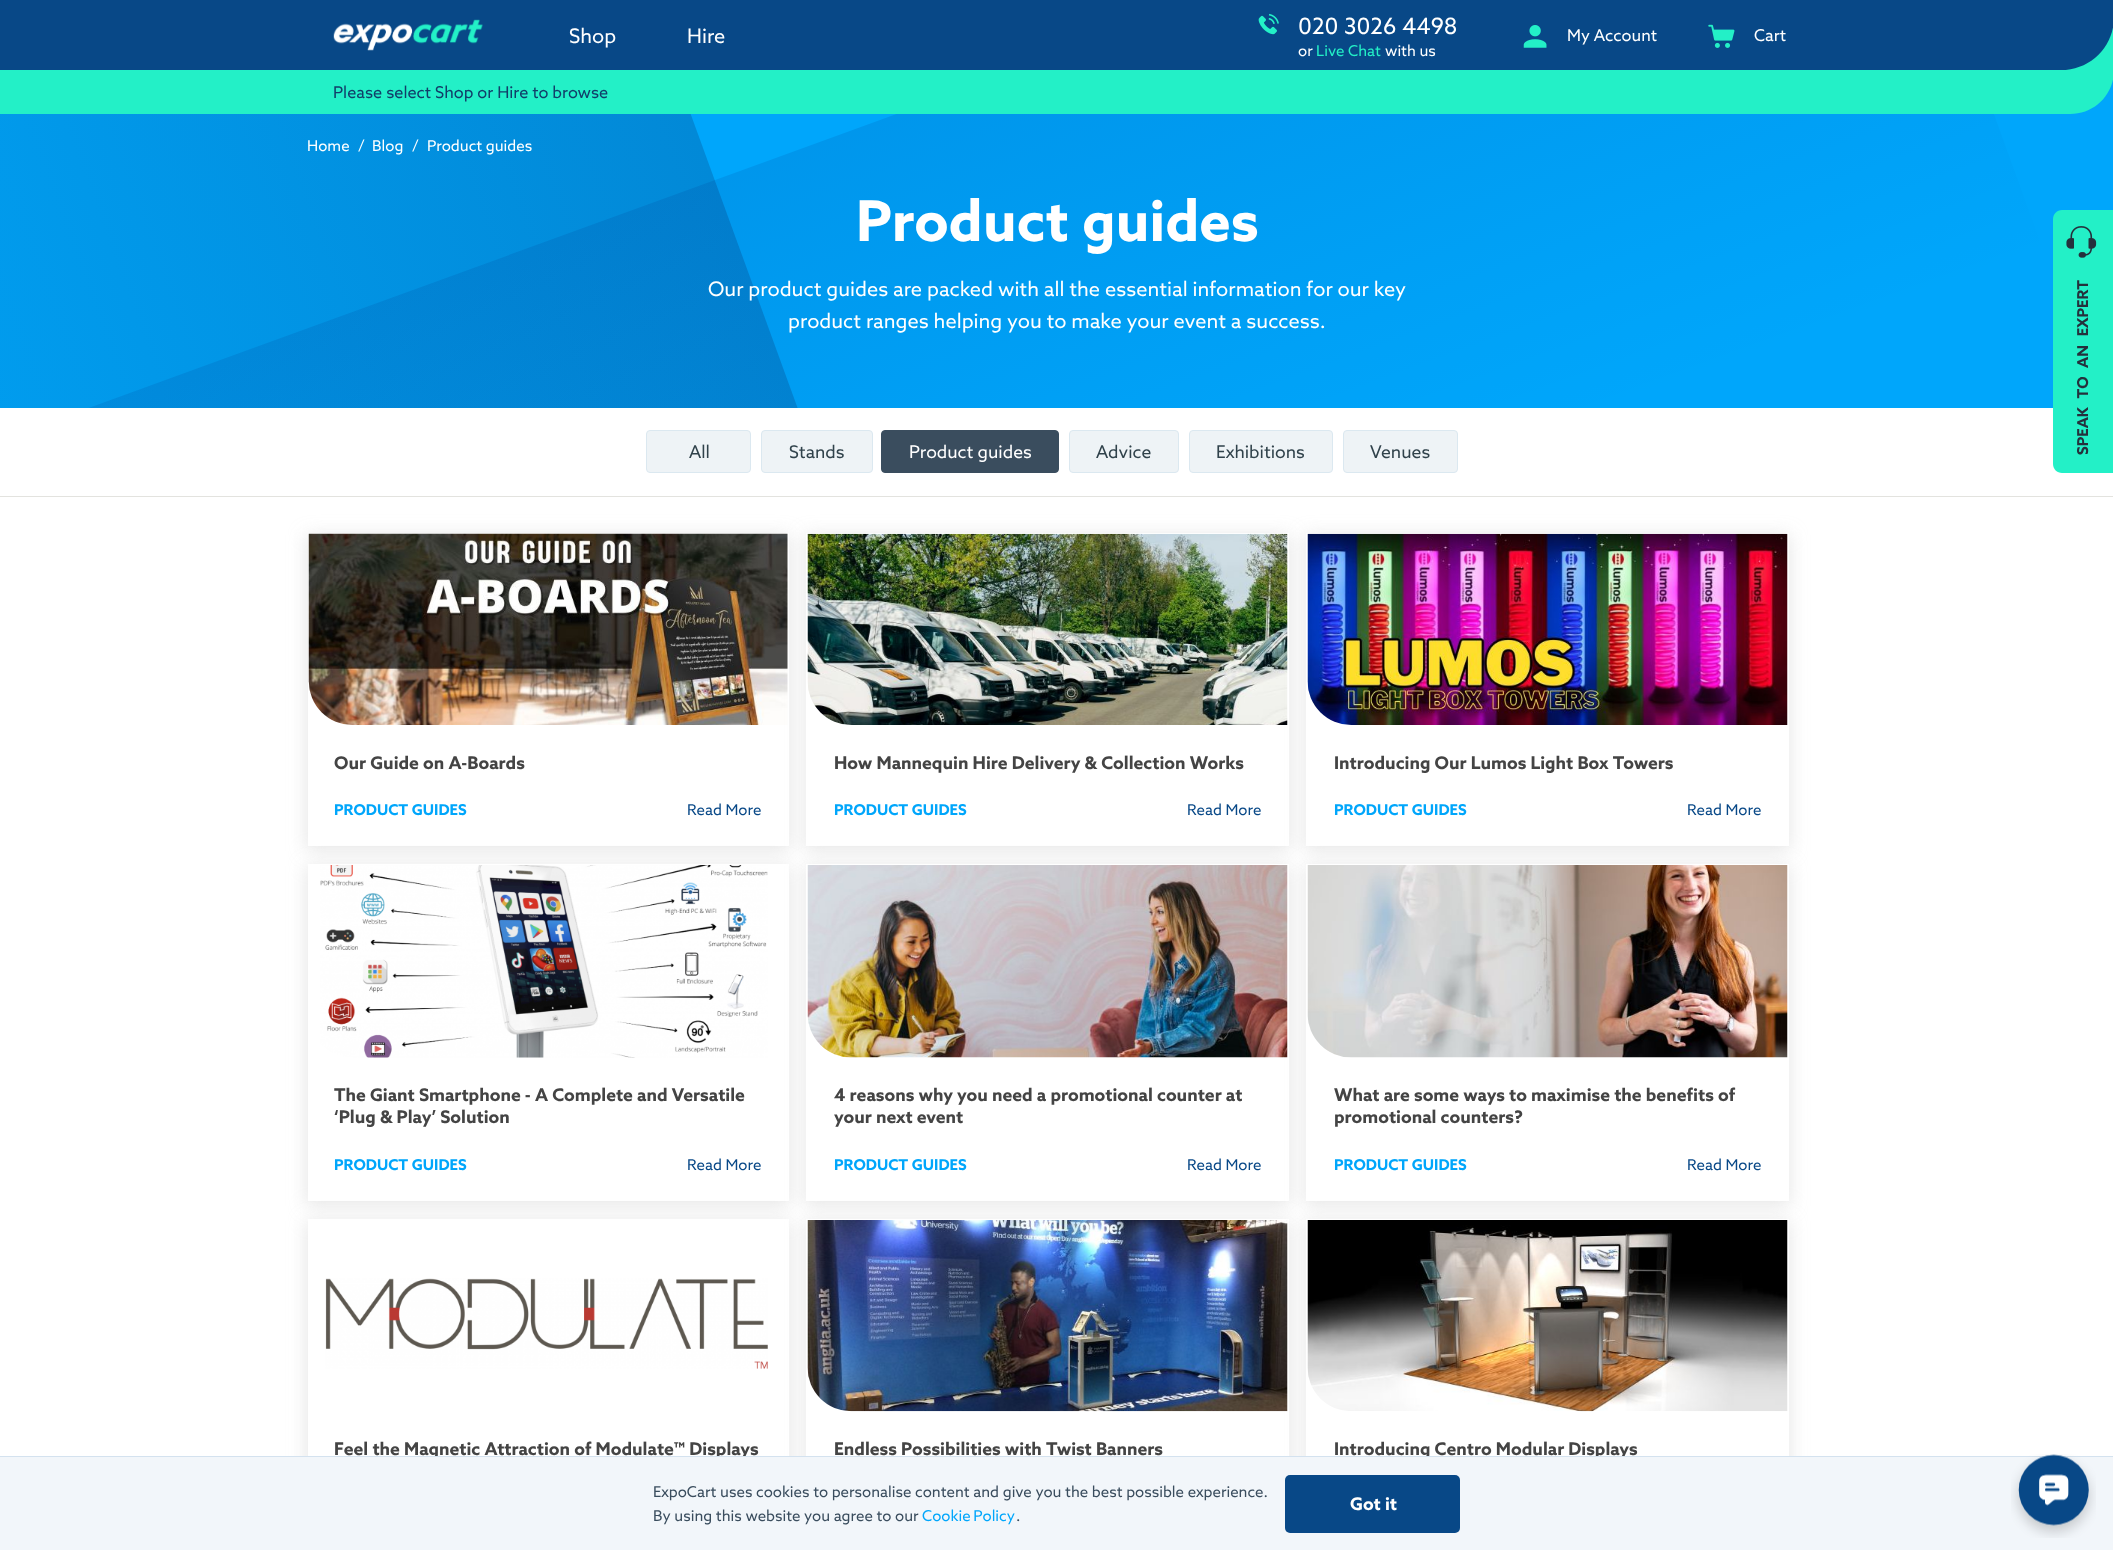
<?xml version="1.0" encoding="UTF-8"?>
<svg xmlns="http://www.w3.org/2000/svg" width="2113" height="1550">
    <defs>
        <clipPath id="clip1"><rect x="0" y="0" width="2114" height="408"/></clipPath>
        <linearGradient id="g1" gradientUnits="userSpaceOnUse" x1="595" y1="-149" x2="-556" y2="270"><stop offset="0" stop-color="#0289D7"/><stop offset="0.97" stop-color="#00A7FB"/><stop offset="1" stop-color="#00A7FB"/></linearGradient>
        <linearGradient id="g2" gradientUnits="userSpaceOnUse" x1="715" y1="180" x2="894" y2="673"><stop offset="0" stop-color="#000A64" stop-opacity="0.1"/><stop offset="1" stop-color="#000A64" stop-opacity="0"/></linearGradient>
        <filter id="blur1" x="-50%" y="-200%" width="200%" height="500%"><feGaussianBlur stdDeviation="9"/></filter>
    </defs>
    <rect width="100%" height="100%" fill="#FFFFFF"/>
    <rect x="2061" y="27" width="52" height="43" fill="#23F0C7"/>
    <rect x="690" y="79" width="1423" height="329" fill="#00A6FB"/>
    <g clip-path="url(#clip1)">
        <path d="M -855 -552 L 296 -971 L 894 673 L -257 1092 Z" fill="url(#g1)"/>
        <path d="M -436 599 L 1866 -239 L 2045 255 L -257 1092 Z" fill="url(#g2)"/>
    </g>
    <path d="M 0 0 H 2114 V 17 C 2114 46.5 2090.5 70 2061 70 H 0 Z" fill="#084887"/>
    <image x="333" y="19" width="150" height="32" href="img_01.png"/>
    <text x="569" y="43" font-family="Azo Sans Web" font-size="20" fill="#FFFFFF">Shop</text>
    <text x="687" y="43" font-family="Azo Sans Web" font-size="20" fill="#FFFFFF">Hire</text>
    <image x="1258" y="13" width="21" height="22" href="img_02.png"/>
    <text x="1298" y="34" font-family="Azo Sans Web" font-size="22.5" fill="#FFFFFF">020 3026 4498</text>
    <text x="1298" y="56" font-family="Azo Sans Web" font-size="15" fill="#FFFFFF">or</text>
    <text x="1316" y="56" font-family="Azo Sans Web" font-size="15" fill="#23F0C7">Live Chat</text>
    <text x="1385" y="56" font-family="Azo Sans Web" font-size="15" fill="#FFFFFF">with us</text>
    <image x="1523" y="25" width="24" height="23" href="img_03.png"/>
    <text x="1567" y="41" font-family="Azo Sans Web" font-size="16.25" fill="#FFFFFF">My Account</text>
    <image x="1708" y="24" width="27" height="24" href="img_04.png"/>
    <text x="1754" y="41" font-family="Azo Sans Web" font-size="16.25" fill="#FFFFFF">Cart</text>
    <path d="M 0 70 H 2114 C 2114 94.5 2094.5 114 2070 114 H 0 Z" fill="#23F0C7"/>
    <text x="333" y="98" font-family="Azo Sans Web" font-size="16.25" fill="#123E69">Please select Shop or Hire to browse</text>
    <text x="307" y="151" font-family="Azo Sans Web" font-size="15" fill="#FFFFFF">Home</text>
    <text x="358" y="151" font-family="Azo Sans Web" font-size="15" fill="#FFFFFF">/</text>
    <text x="372" y="151" font-family="Azo Sans Web" font-size="15" fill="#FFFFFF">Blog</text>
    <text x="412" y="151" font-family="Azo Sans Web" font-size="15" fill="#FFFFFF">/</text>
    <text x="427" y="151" font-family="Azo Sans Web" font-size="15" fill="#FFFFFF">Product guides</text>
    <text x="856" y="241" font-family="Azo Sans Web" font-size="56.25" font-weight="700" fill="#FFFFFF">Product guides</text>
    <text x="708" y="296" font-family="Azo Sans Web" font-size="20" fill="#FFFFFF">Our product guides are packed with all the essential information for our key</text>
    <text x="788" y="328" font-family="Azo Sans Web" font-size="20" fill="#FFFFFF">product ranges helping you to make your event a success.</text>
    <rect x="0" y="496" width="2113" height="1" fill="#E3E3DF"/>
    <rect x="646.5" y="430.5" width="104" height="42" rx="3.5" fill="#EEF3F6" stroke="#DBE8F0"/>
    <text x="689" y="458" font-family="Azo Sans Web" font-size="17.5" fill="#30424B">All</text>
    <rect x="761.5" y="430.5" width="111" height="42" rx="3.5" fill="#EEF3F6" stroke="#DBE8F0"/>
    <text x="789" y="458" font-family="Azo Sans Web" font-size="17.5" fill="#30424B">Stands</text>
    <rect x="881.5" y="430.5" width="177" height="42" rx="3.5" fill="#3A4D5E" stroke="#3A4D5E"/>
    <text x="909" y="458" font-family="Azo Sans Web" font-size="17.5" fill="#FFFFFF">Product guides</text>
    <rect x="1069.5" y="430.5" width="109" height="42" rx="3.5" fill="#EEF3F6" stroke="#DBE8F0"/>
    <text x="1096" y="458" font-family="Azo Sans Web" font-size="17.5" fill="#30424B">Advice</text>
    <rect x="1189.5" y="430.5" width="143" height="42" rx="3.5" fill="#EEF3F6" stroke="#DBE8F0"/>
    <text x="1216" y="458" font-family="Azo Sans Web" font-size="17.5" fill="#30424B">Exhibitions</text>
    <rect x="1343.5" y="430.5" width="114" height="42" rx="3.5" fill="#EEF3F6" stroke="#DBE8F0"/>
    <text x="1370" y="458" font-family="Azo Sans Web" font-size="17.5" fill="#30424B">Venues</text>
    <rect x="306" y="535" width="484" height="316" fill="#D0D0D0" fill-opacity="0.5" filter="url(#blur1)"/>
    <rect x="308" y="533" width="481" height="313" fill="#FFFFFF"/>
    <image x="308" y="533" width="480" height="192" href="img_05.png"/>
    <text x="334" y="769" font-family="Azo Sans Web" font-size="17.5" font-weight="700" fill="#444444">Our Guide on A-Boards</text>
    <text x="334" y="815" font-family="Azo Sans Web" font-size="15" font-weight="700" fill="#00A6FB">PRODUCT GUIDES</text>
    <text x="687" y="815" font-family="Azo Sans Web" font-size="15" fill="#084887">Read More</text>
    <rect x="805" y="535" width="485" height="316" fill="#D0D0D0" fill-opacity="0.5" filter="url(#blur1)"/>
    <rect x="806" y="533" width="483" height="313" fill="#FFFFFF"/>
    <image x="807" y="533" width="481" height="192" href="img_06.png"/>
    <text x="834" y="769" font-family="Azo Sans Web" font-size="17.5" font-weight="700" fill="#444444">How Mannequin Hire Delivery &amp; Collection Works</text>
    <text x="834" y="815" font-family="Azo Sans Web" font-size="15" font-weight="700" fill="#00A6FB">PRODUCT GUIDES</text>
    <text x="1187" y="815" font-family="Azo Sans Web" font-size="15" fill="#084887">Read More</text>
    <rect x="1305" y="535" width="485" height="316" fill="#D0D0D0" fill-opacity="0.5" filter="url(#blur1)"/>
    <rect x="1306" y="533" width="483" height="313" fill="#FFFFFF"/>
    <image x="1307" y="533" width="481" height="192" href="img_07.png"/>
    <text x="1334" y="769" font-family="Azo Sans Web" font-size="17.5" font-weight="700" fill="#444444">Introducing Our Lumos Light Box Towers</text>
    <text x="1334" y="815" font-family="Azo Sans Web" font-size="15" font-weight="700" fill="#00A6FB">PRODUCT GUIDES</text>
    <text x="1687" y="815" font-family="Azo Sans Web" font-size="15" fill="#084887">Read More</text>
    <rect x="306" y="866" width="484" height="340" fill="#D0D0D0" fill-opacity="0.5" filter="url(#blur1)"/>
    <rect x="308" y="864" width="481" height="337" fill="#FFFFFF"/>
    <image x="320" y="865" width="448" height="193" href="img_08.png"/>
    <text font-family="Azo Sans Web" font-size="17.5" font-weight="700" fill="#444444">
        <tspan x="334" y="1101">The Giant Smartphone - A Complete and Versatile</tspan>
        <tspan x="334" y="1123">‘Plug &amp; Play’ Solution</tspan>
    </text>
    <text x="334" y="1170" font-family="Azo Sans Web" font-size="15" font-weight="700" fill="#00A6FB">PRODUCT GUIDES</text>
    <text x="687" y="1170" font-family="Azo Sans Web" font-size="15" fill="#084887">Read More</text>
    <rect x="805" y="866" width="485" height="340" fill="#D0D0D0" fill-opacity="0.5" filter="url(#blur1)"/>
    <rect x="806" y="864" width="483" height="337" fill="#FFFFFF"/>
    <image x="807" y="865" width="481" height="193" href="img_09.png"/>
    <text font-family="Azo Sans Web" font-size="17.5" font-weight="700" fill="#444444">
        <tspan x="834" y="1101">4 reasons why you need a promotional counter at</tspan>
        <tspan x="834" y="1123">your next event</tspan>
    </text>
    <text x="834" y="1170" font-family="Azo Sans Web" font-size="15" font-weight="700" fill="#00A6FB">PRODUCT GUIDES</text>
    <text x="1187" y="1170" font-family="Azo Sans Web" font-size="15" fill="#084887">Read More</text>
    <rect x="1305" y="866" width="485" height="340" fill="#D0D0D0" fill-opacity="0.5" filter="url(#blur1)"/>
    <rect x="1306" y="864" width="483" height="337" fill="#FFFFFF"/>
    <image x="1307" y="865" width="481" height="193" href="img_10.png"/>
    <text font-family="Azo Sans Web" font-size="17.5" font-weight="700" fill="#444444">
        <tspan x="1334" y="1101">What are some ways to maximise the benefits of</tspan>
        <tspan x="1334" y="1123">promotional counters?</tspan>
    </text>
    <text x="1334" y="1170" font-family="Azo Sans Web" font-size="15" font-weight="700" fill="#00A6FB">PRODUCT GUIDES</text>
    <text x="1687" y="1170" font-family="Azo Sans Web" font-size="15" fill="#084887">Read More</text>
    <rect x="306" y="1221" width="484" height="317" fill="#D0D0D0" fill-opacity="0.5" filter="url(#blur1)"/>
    <rect x="308" y="1219" width="481" height="237" fill="#FFFFFF"/>
    <image x="325" y="1278" width="443" height="91" href="img_11.png"/>
    <text x="334" y="1455" font-family="Azo Sans Web" font-size="17.5" font-weight="700" fill="#444444">Feel the Magnetic Attraction of Modulate™ Displays</text>
    <rect x="805" y="1221" width="485" height="317" fill="#D0D0D0" fill-opacity="0.5" filter="url(#blur1)"/>
    <rect x="806" y="1219" width="483" height="237" fill="#FFFFFF"/>
    <image x="807" y="1220" width="481" height="192" href="img_12.png"/>
    <text x="834" y="1455" font-family="Azo Sans Web" font-size="17.5" font-weight="700" fill="#444444">Endless Possibilities with Twist Banners</text>
    <rect x="1305" y="1221" width="485" height="317" fill="#D0D0D0" fill-opacity="0.5" filter="url(#blur1)"/>
    <rect x="1306" y="1219" width="483" height="237" fill="#FFFFFF"/>
    <image x="1307" y="1220" width="481" height="192" href="img_13.png"/>
    <text x="1334" y="1455" font-family="Azo Sans Web" font-size="17.5" font-weight="700" fill="#444444">Introducing Centro Modular Displays</text>
    <path d="M 2062 210 H 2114 V 473 H 2062 C 2057 473 2053 469 2053 464 V 219 C 2053 214 2057 210 2062 210 Z" fill="#23F0C7"/>
    <image x="2066" y="226" width="31" height="32" href="img_14.png"/>
    <text x="2088" y="455" transform="rotate(-90 2088 455)" word-spacing="5" font-family="Azo Sans Web" font-size="15" font-weight="700" fill="#25303C">SPEAK TO AN EXPERT</text>
    <rect x="0" y="1457" width="2113" height="93" fill="#F2F6FA"/>
    <rect x="0" y="1456" width="2113" height="1" fill="#D4E2EF"/>
    <text font-family="Azo Sans Web" font-size="15" fill="#3A4D5E">
        <tspan x="653" y="1497">ExpoCart uses cookies to personalise content and give you the best possible experience.</tspan>
        <tspan x="653" y="1521">By using this website you agree to our</tspan>
    </text>
    <text x="922" y="1521" word-spacing="-1" font-family="Azo Sans Web" font-size="15" fill="#00A6FB">Cookie Policy</text>
    <text x="1016" y="1521" font-family="Azo Sans Web" font-size="15" fill="#3A4D5E">.</text>
    <rect x="1285" y="1475" width="175" height="58" rx="5" fill="#084887"/>
    <text x="1350" y="1510" font-family="Azo Sans Web" font-size="17.5" font-weight="700" fill="#FFFFFF">Got it</text>
    <image x="2011" y="1454" width="85" height="84" href="img_15.png"/>
</svg>
